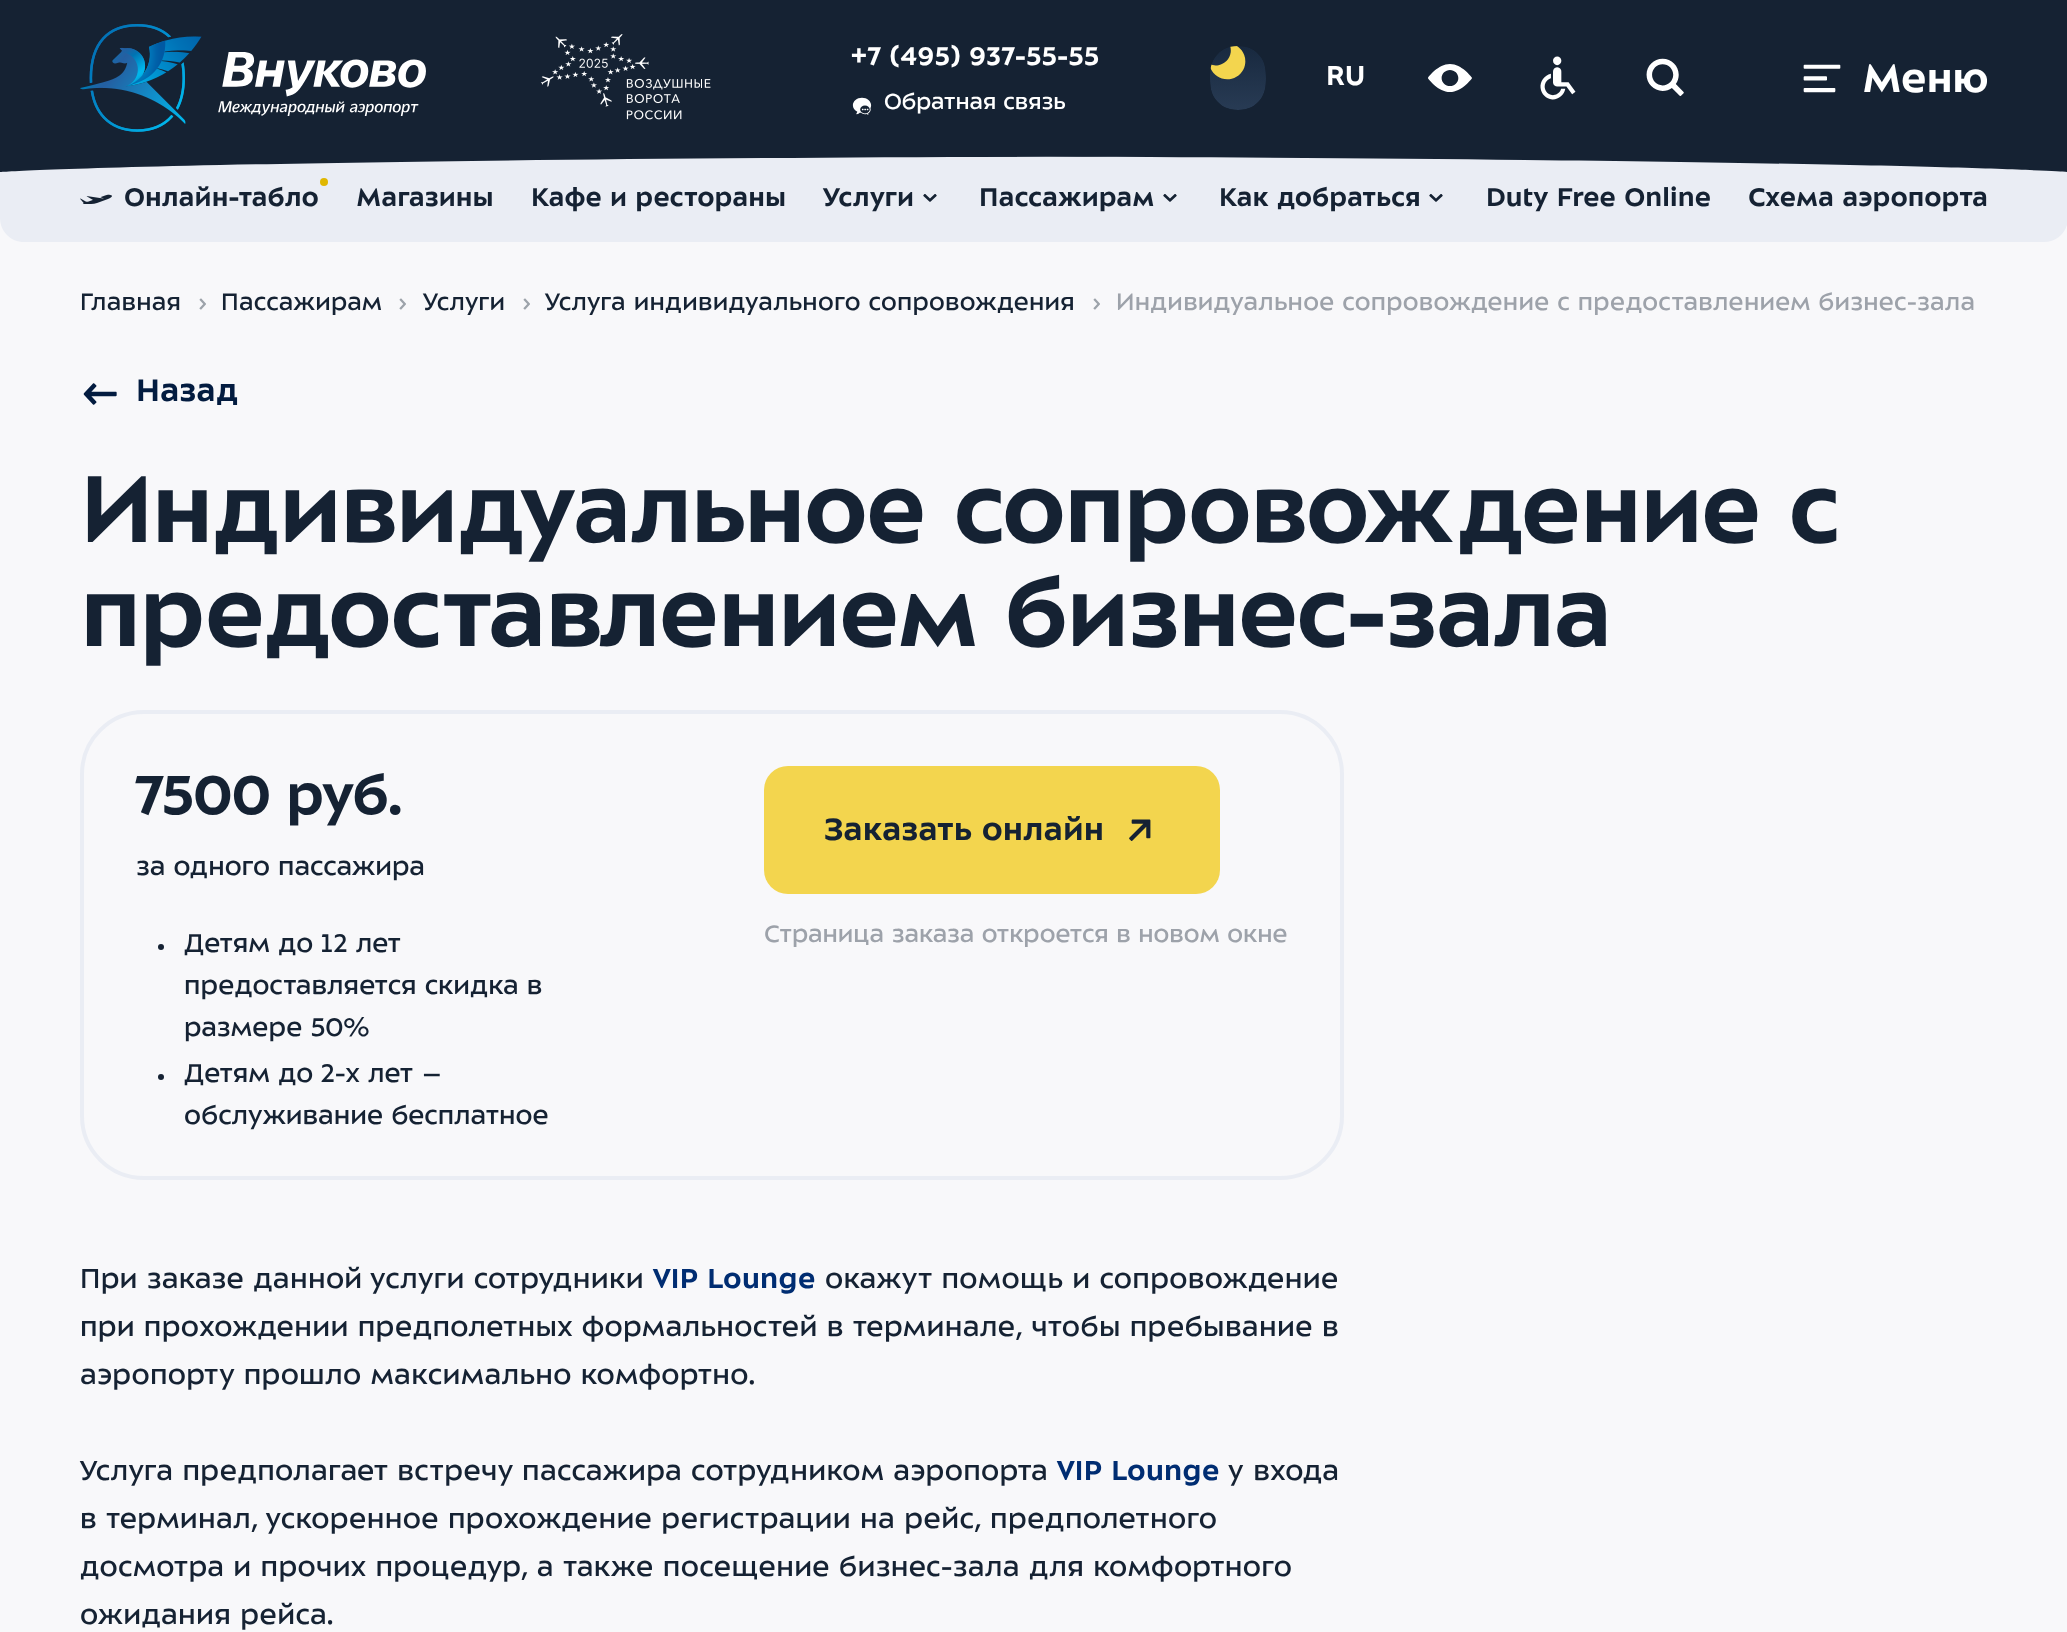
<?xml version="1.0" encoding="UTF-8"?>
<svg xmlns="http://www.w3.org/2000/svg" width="2067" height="1632">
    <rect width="100%" height="100%" fill="#F8F8FA"/>
    <rect x="0" y="0" width="2067" height="156" fill="#152233"/>
    <image x="80" y="24" width="122" height="108" href="img_01.png"/>
    <image x="218" y="52" width="208" height="64" href="img_02.png"/>
    <image x="541" y="34" width="170" height="86" href="img_03.png"/>
    <text x="850" y="65" font-family="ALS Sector" font-size="28" font-weight="700" letter-spacing="0.25" fill="#FFFFFF">+7 (495) 937-55-55</text>
    <image x="852" y="97" width="20" height="18" href="img_04.png"/>
    <text x="884" y="109" font-family="ALS Sector" font-size="24" fill="#FFFFFF">Обратная связь</text>
    <image x="1210" y="46" width="56" height="64" href="img_05.png"/>
    <text x="1326" y="85" font-family="ALS Sector" font-size="30" font-weight="700" fill="#FFFFFF">RU</text>
    <image x="1428" y="64" width="44" height="28" href="img_06.png"/>
    <image x="1540" y="56" width="36" height="44" href="img_07.png"/>
    <image x="1646" y="58" width="38" height="38" href="img_08.png"/>
    <image x="1803" y="64" width="38" height="29" href="img_09.png"/>
    <text x="1862" y="92" font-family="ALS Sector" font-size="44" font-weight="700" letter-spacing="-0.5" fill="#FFFFFF">Меню</text>
    <path d="M 0 156 H 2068 V 218 C 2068 231.5 2057.5 242 2044 242 H 24 C 10.5 242 0 231.5 0 218 Z" fill="#EAEDF4"/>
    <path d="M 1440 156 H 0 V 172 C 0 172 235 156 1440 156 Z" fill="#152233" fill-rule="evenodd"/>
    <path d="M 628 156 C 1833 156 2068 172 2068 172 V 156 Z" fill="#152233" fill-rule="evenodd"/>
    <circle cx="324" cy="182" r="4" fill="#E0B700"/>
    <image x="80" y="194" width="32" height="10" href="img_10.png"/>
    <text x="124" y="206" font-family="ALS Sector" font-size="28" font-weight="700" fill="#152233">Онлайн-табло</text>
    <text x="356" y="206" font-family="ALS Sector" font-size="28" font-weight="700" fill="#152233">Магазины</text>
    <text x="531" y="206" font-family="ALS Sector" font-size="28" font-weight="700" fill="#152233">Кафе и рестораны</text>
    <text x="823" y="206" font-family="ALS Sector" font-size="28" font-weight="700" fill="#152233">Услуги</text>
    <image x="923" y="194" width="14" height="8" href="img_11.png"/>
    <text x="979" y="206" font-family="ALS Sector" font-size="28" font-weight="700" fill="#152233">Пассажирам</text>
    <image x="1163" y="194" width="14" height="8" href="img_11.png"/>
    <text x="1219" y="206" font-family="ALS Sector" font-size="28" font-weight="700" fill="#152233">Как добраться</text>
    <image x="1429" y="194" width="14" height="8" href="img_11.png"/>
    <text x="1486" y="206" font-family="ALS Sector" font-size="28" font-weight="700" fill="#152233">Duty Free Online</text>
    <text x="1748" y="206" font-family="ALS Sector" font-size="28" font-weight="700" fill="#152233">Схема аэропорта</text>
    <text x="80" y="310" font-family="ALS Sector" font-size="26" letter-spacing="0.25" fill="#152233">Главная</text>
    <image x="199" y="298" width="7" height="12" href="img_12.png"/>
    <text x="221" y="310" font-family="ALS Sector" font-size="26" letter-spacing="0.25" fill="#152233">Пассажирам</text>
    <image x="399" y="298" width="7" height="12" href="img_12.png"/>
    <text x="423" y="310" font-family="ALS Sector" font-size="26" letter-spacing="0.25" fill="#152233">Услуги</text>
    <image x="523" y="298" width="7" height="12" href="img_12.png"/>
    <text x="545" y="310" font-family="ALS Sector" font-size="26" letter-spacing="0.25" fill="#152233">Услуга индивидуального сопровождения</text>
    <image x="1093" y="298" width="7" height="12" href="img_12.png"/>
    <text x="1116" y="310" font-family="ALS Sector" font-size="26" letter-spacing="0.25" fill="#9DA2AA">Индивидуальное сопровождение с предоставлением бизнес-зала</text>
    <image x="83" y="383" width="34" height="22" href="img_13.png"/>
    <text x="136" y="401" font-family="ALS Sector" font-size="34" font-weight="700" fill="#031C40">Назад</text>
    <text font-family="ALS Sector" font-size="104" font-weight="700" letter-spacing="-2.1" fill="#152233">
        <tspan x="80" y="542">Индивидуальное сопровождение с</tspan>
        <tspan x="80" y="646">предоставлением бизнес-зала</tspan>
    </text>
    <rect x="82" y="712" width="1260" height="466" rx="62" fill="none" stroke="#EAEDF4" stroke-width="4"/>
    <text x="136" y="814" font-family="ALS Sector" font-size="60" font-weight="700" letter-spacing="-1.25" fill="#152233">7500 руб.</text>
    <text x="136" y="875" font-family="ALS Sector" font-size="28" fill="#152233">за одного пассажира</text>
    <circle cx="161" cy="947" r="3" fill="#152233"/>
    <text font-family="ALS Sector" font-size="28" fill="#152233">
        <tspan x="184" y="952">Детям до 12 лет</tspan>
        <tspan x="184" y="994">предоставляется скидка в</tspan>
        <tspan x="184" y="1036">размере 50%</tspan>
    </text>
    <circle cx="161" cy="1077" r="3" fill="#152233"/>
    <text font-family="ALS Sector" font-size="28" fill="#152233">
        <tspan x="184" y="1082">Детям до 2-х лет –</tspan>
        <tspan x="184" y="1124">обслуживание бесплатное</tspan>
    </text>
    <rect x="764" y="766" width="456" height="128" rx="24" fill="#F3D54E"/>
    <text x="824" y="840" font-family="ALS Sector" font-size="34" font-weight="700" fill="#152233">Заказать онлайн</text>
    <image x="1129" y="819" width="22" height="22" href="img_14.png"/>
    <text x="764" y="942" font-family="ALS Sector" font-size="26" fill="#9DA2AA">Страница заказа откроется в новом окне</text>
    <text x="80" y="1288" font-family="ALS Sector" font-size="30" letter-spacing="0.3" fill="#152233">При заказе данной услуги сотрудники</text>
    <text x="653" y="1288" font-family="ALS Sector" font-size="30" font-weight="700" letter-spacing="0.3" fill="#002D72">VIP Lounge</text>
    <text x="825" y="1288" font-family="ALS Sector" font-size="30" letter-spacing="0.3" fill="#152233">окажут помощь и сопровождение</text>
    <text font-family="ALS Sector" font-size="30" letter-spacing="0.3" fill="#152233">
        <tspan x="80" y="1336">при прохождении предполетных формальностей в терминале, чтобы пребывание в</tspan>
        <tspan x="80" y="1384">аэропорту прошло максимально комфортно.</tspan>
    </text>
    <text x="80" y="1480" font-family="ALS Sector" font-size="30" letter-spacing="0.3" fill="#152233">Услуга предполагает встречу пассажира сотрудником аэропорта</text>
    <text x="1057" y="1480" font-family="ALS Sector" font-size="30" font-weight="700" letter-spacing="0.3" fill="#002D72">VIP Lounge</text>
    <text x="1228" y="1480" word-spacing="1" font-family="ALS Sector" font-size="30" letter-spacing="0.3" fill="#152233">у входа</text>
    <text font-family="ALS Sector" font-size="30" letter-spacing="0.3" fill="#152233">
        <tspan x="80" y="1528">в терминал, ускоренное прохождение регистрации на рейс, предполетного</tspan>
        <tspan x="80" y="1576">досмотра и прочих процедур, а также посещение бизнес-зала для комфортного</tspan>
        <tspan x="80" y="1624">ожидания рейса.</tspan>
    </text>
</svg>
